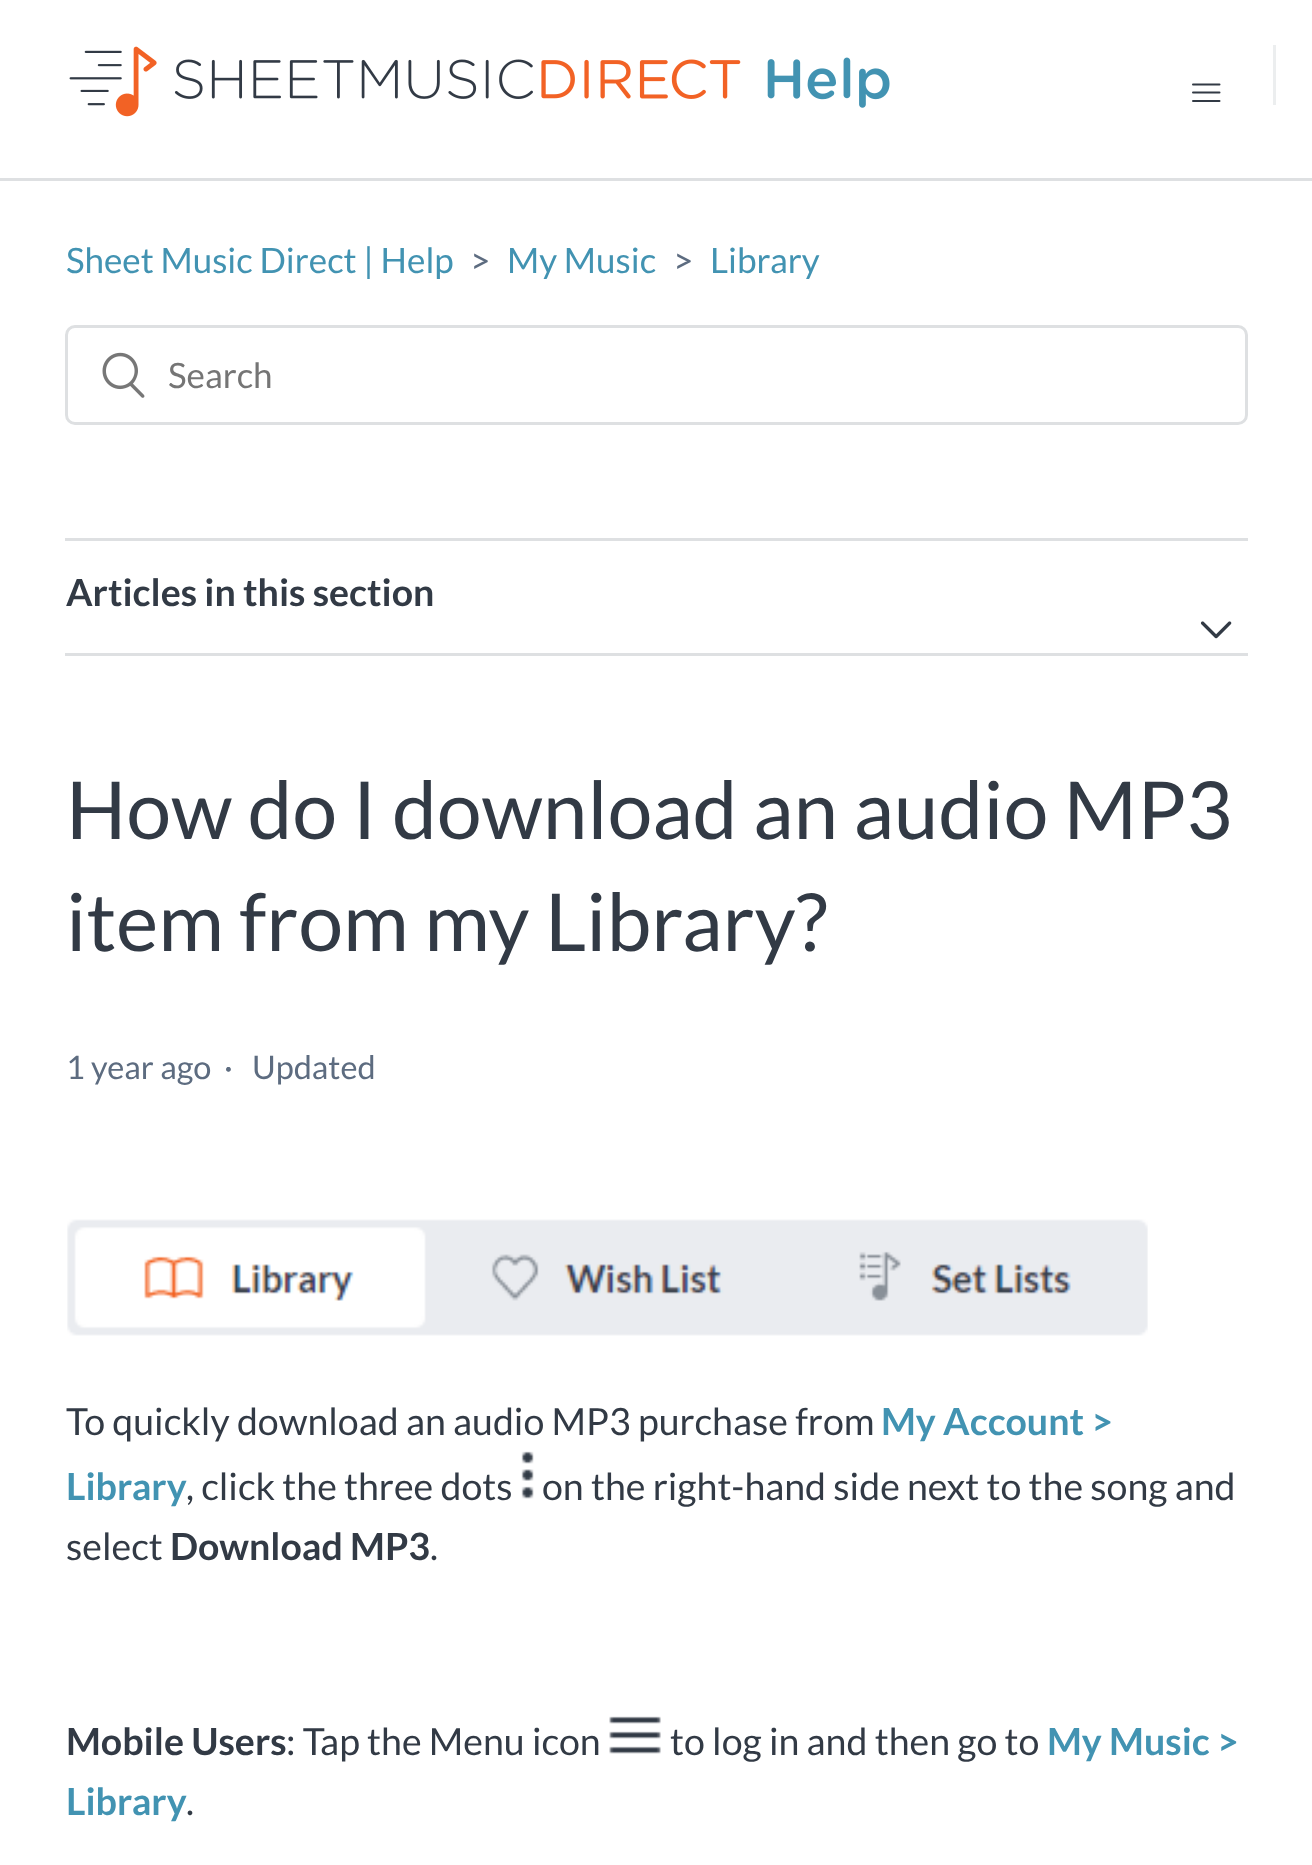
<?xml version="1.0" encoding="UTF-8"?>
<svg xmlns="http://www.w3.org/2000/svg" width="1312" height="1865">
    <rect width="100%" height="100%" fill="#FFFFFF"/>
    <image x="69" y="46" width="821" height="71" href="img_01.png"/>
    <path d="M 1193 84.5 H 1219.5 M 1193 92.5 H 1219.5 M 1193 101 H 1219.5" fill="none" stroke="#323A45" stroke-width="2" stroke-linecap="round"/>
    <rect x="1273" y="45" width="3" height="60" fill="#ECEEEF"/>
    <rect x="0" y="178" width="1312" height="3" fill="#DEE0E2"/>
    <text x="66" y="273" font-family="Lato" font-size="35" fill="#4293B2">Sheet Music Direct | Help</text>
    <text x="470" y="273" font-family="Lato" font-size="35" fill="#5D6C80">&gt;</text>
    <text x="507" y="273" font-family="Lato" font-size="35" fill="#4293B2">My Music</text>
    <text x="673" y="273" font-family="Lato" font-size="35" fill="#5D6C80">&gt;</text>
    <text x="710" y="273" font-family="Lato" font-size="35" fill="#4293B2">Library</text>
    <rect x="66.5" y="326.5" width="1180" height="97" rx="8.5" fill="none" stroke="#DEE0E2" stroke-width="3"/>
    <image x="102" y="352" width="43" height="46" href="img_02.png"/>
    <text x="168" y="388" font-family="Lato" font-size="35" fill="#757575">Search</text>
    <rect x="65" y="538" width="1183" height="3" fill="#DEE0E2"/>
    <rect x="65" y="653" width="1183" height="3" fill="#DEE0E2"/>
    <text x="66" y="606" font-family="Lato" font-size="37.5" font-weight="700" fill="#323A45">Articles in this section</text>
    <image x="1200" y="621" width="32" height="18" href="img_03.png"/>
    <text font-family="Lato" font-size="80" fill="#323A45">
        <tspan x="66" y="839">How do I download an audio MP3</tspan>
        <tspan x="66" y="951">item from my Library?</tspan>
    </text>
    <text x="66" y="1079" font-family="Lato" font-size="32.5" fill="#5D6C80">1 year ago</text>
    <text x="224" y="1079" font-family="Lato" font-size="32.5" fill="#5D6C80">·</text>
    <text x="252" y="1079" font-family="Lato" font-size="32.5" fill="#5D6C80">Updated</text>
    <image x="67" y="1219" width="1081" height="117" href="img_04.png"/>
    <text x="66" y="1435" font-family="Lato" font-size="37.5" fill="#323A45">To quickly download an audio MP3 purchase from</text>
    <text x="881" y="1435" font-family="Lato" font-size="37.5" font-weight="700" fill="#4293B2">My Account &gt;</text>
    <text x="66" y="1500" font-family="Lato" font-size="37.5" font-weight="700" fill="#4293B2">Library</text>
    <text x="186" y="1500" font-family="Lato" font-size="37.5" fill="#323A45">, click the three dots</text>
    <image x="521" y="1451" width="13" height="48" href="img_05.png"/>
    <text x="542" y="1500" font-family="Lato" font-size="37.5" fill="#323A45">on the right-hand side next to the song and</text>
    <text x="66" y="1560" font-family="Lato" font-size="37.5" fill="#323A45">select</text>
    <text x="170" y="1560" font-family="Lato" font-size="37.5" font-weight="700" fill="#323A45">Download MP3</text>
    <text x="430" y="1560" font-family="Lato" font-size="37.5" fill="#323A45">.</text>
    <text x="66" y="1755" font-family="Lato" font-size="37.5" font-weight="700" fill="#323A45">Mobile Users</text>
    <text x="286" y="1755" font-family="Lato" font-size="37.5" fill="#323A45">: Tap the Menu icon</text>
    <image x="609" y="1716" width="52" height="38" href="img_06.png"/>
    <text x="670" y="1755" font-family="Lato" font-size="37.5" fill="#323A45">to log in and then go to</text>
    <text x="1047" y="1755" font-family="Lato" font-size="37.5" font-weight="700" fill="#4293B2">My Music &gt;</text>
    <text x="66" y="1815" font-family="Lato" font-size="37.5" font-weight="700" fill="#4293B2">Library</text>
    <text x="186" y="1815" font-family="Lato" font-size="37.5" fill="#323A45">.</text>
</svg>
